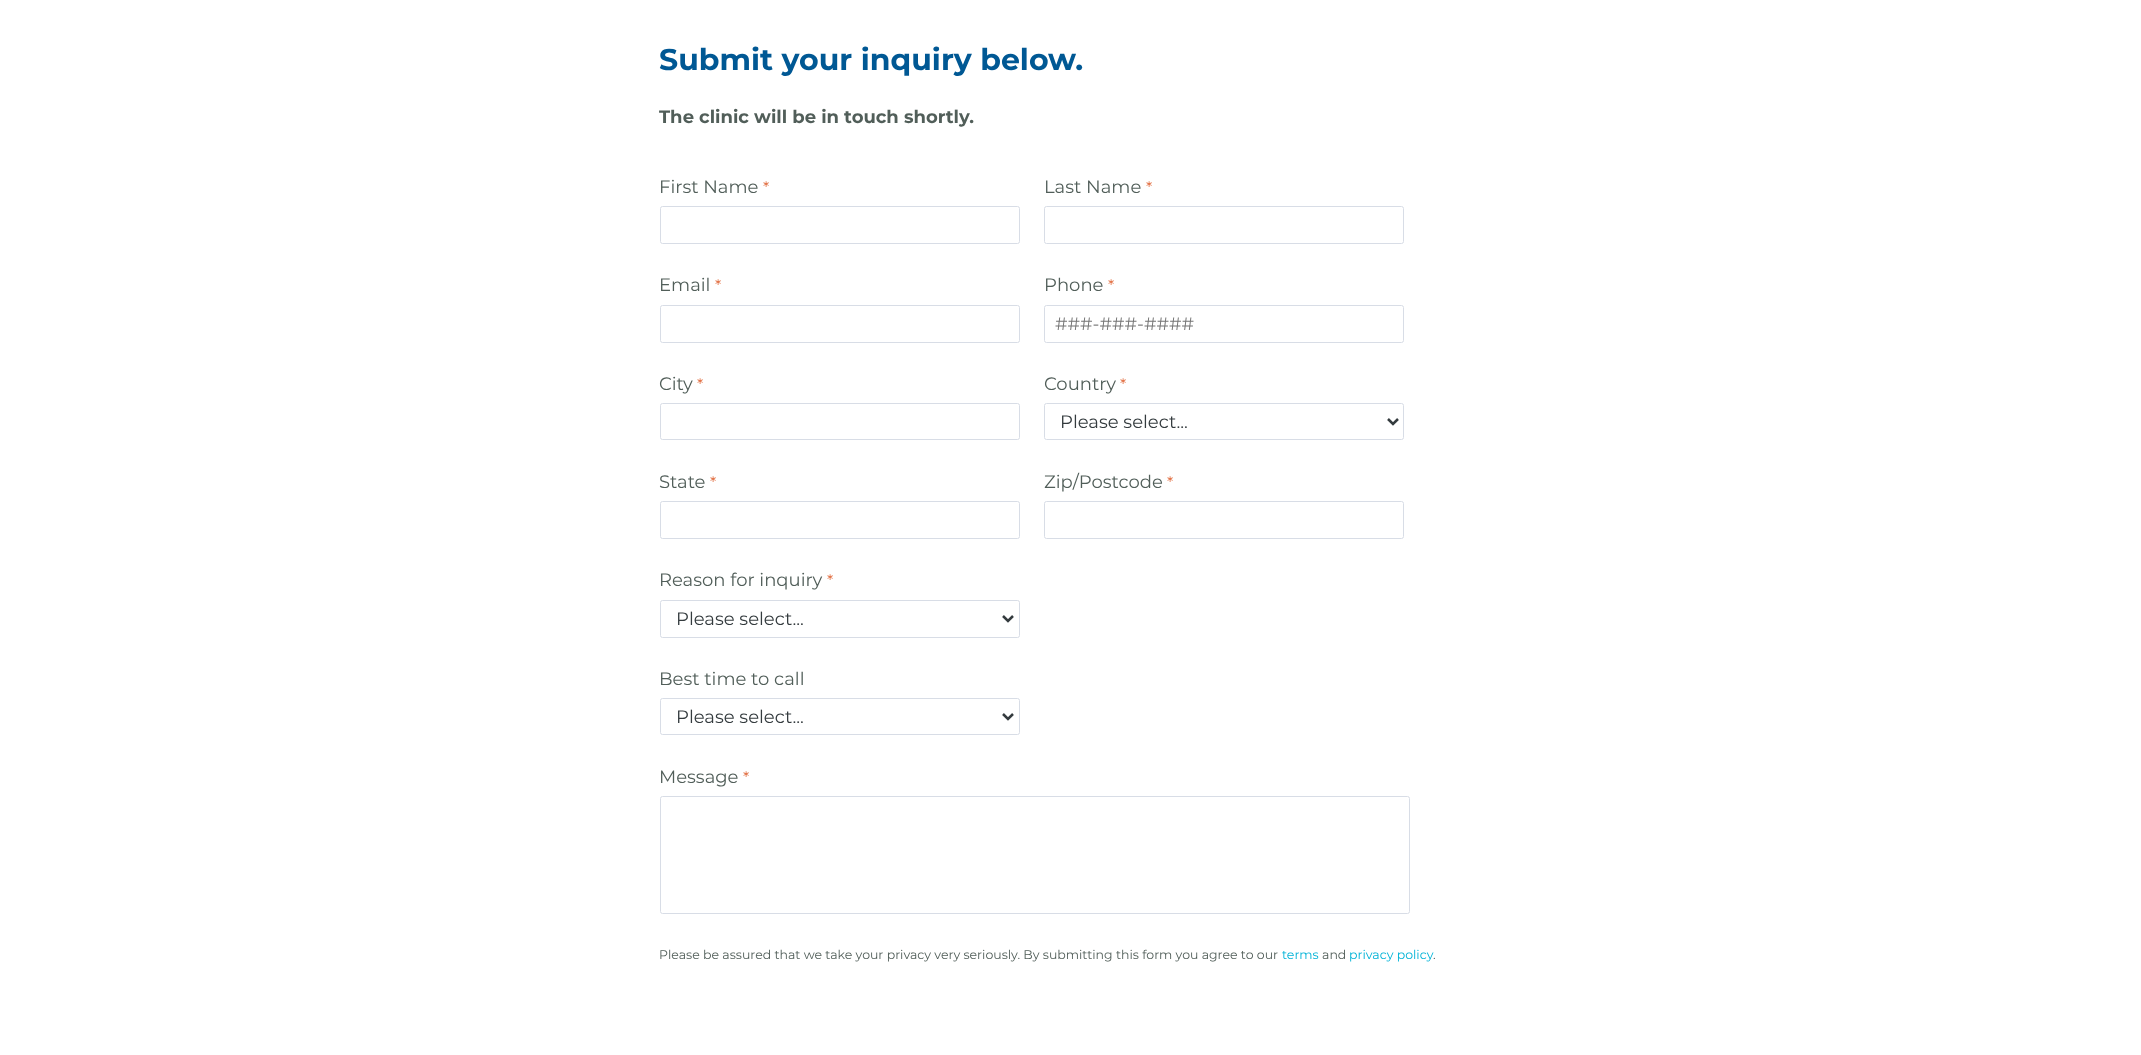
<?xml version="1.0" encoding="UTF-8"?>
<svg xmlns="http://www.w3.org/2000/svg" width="2141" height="1055">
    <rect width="100%" height="100%" fill="#FFFFFF"/>
    <text x="659" y="70" font-family="Montserrat" font-size="30" font-weight="700" fill="#005894">Submit your inquiry below.</text>
    <text x="659" y="123" font-family="Montserrat" font-size="18" font-weight="700" fill="#515E59">The clinic will be in touch shortly.</text>
    <text x="659" y="193" font-family="Montserrat" font-size="18" fill="#515E59">First Name</text>
    <text x="763" y="193" font-family="Montserrat" font-size="16" fill="#E06535">*</text>
    <rect x="660.5" y="206.5" width="359" height="37" rx="2" fill="none" stroke="#D8DDE6"/>
    <text x="1044" y="193" font-family="Montserrat" font-size="18" fill="#515E59">Last Name</text>
    <text x="1146" y="193" font-family="Montserrat" font-size="16" fill="#E06535">*</text>
    <rect x="1044.5" y="206.5" width="359" height="37" rx="2" fill="none" stroke="#D8DDE6"/>
    <text x="659" y="291" font-family="Montserrat" font-size="18" fill="#515E59">Email</text>
    <text x="715" y="291" font-family="Montserrat" font-size="16" fill="#E06535">*</text>
    <rect x="660.5" y="305.5" width="359" height="37" rx="2" fill="none" stroke="#D8DDE6"/>
    <text x="1044" y="291" font-family="Montserrat" font-size="18" fill="#515E59">Phone</text>
    <text x="1108" y="291" font-family="Montserrat" font-size="16" fill="#E06535">*</text>
    <rect x="1044.5" y="305.5" width="359" height="37" rx="2" fill="none" stroke="#D8DDE6"/>
    <text x="1055" y="330" font-family="Montserrat" font-size="18" fill="#757575">###-###-####</text>
    <text x="659" y="390" font-family="Montserrat" font-size="18" fill="#515E59">City</text>
    <text x="697" y="390" font-family="Montserrat" font-size="16" fill="#E06535">*</text>
    <rect x="660.5" y="403.5" width="359" height="36" rx="2" fill="none" stroke="#D8DDE6"/>
    <text x="1044" y="390" font-family="Montserrat" font-size="18" fill="#515E59">Country</text>
    <text x="1120" y="390" font-family="Montserrat" font-size="16" fill="#E06535">*</text>
    <rect x="1044.5" y="403.5" width="359" height="36" rx="2" fill="none" stroke="#D8DDE6"/>
    <path d="M 1388 419 L 1393 424 L 1398 419" fill="none" stroke="#343B3E" stroke-width="2.5"/>
    <text x="1060" y="428" font-family="Montserrat" font-size="18" fill="#343B3E">Please select...</text>
    <text x="659" y="488" font-family="Montserrat" font-size="18" fill="#515E59">State</text>
    <text x="710" y="488" font-family="Montserrat" font-size="16" fill="#E06535">*</text>
    <rect x="660.5" y="501.5" width="359" height="37" rx="2" fill="none" stroke="#D8DDE6"/>
    <text x="1044" y="488" font-family="Montserrat" font-size="18" fill="#515E59">Zip/Postcode</text>
    <text x="1167" y="488" font-family="Montserrat" font-size="16" fill="#E06535">*</text>
    <rect x="1044.5" y="501.5" width="359" height="37" rx="2" fill="none" stroke="#D8DDE6"/>
    <text x="659" y="586" font-family="Montserrat" font-size="18" fill="#515E59">Reason for inquiry</text>
    <text x="827" y="586" font-family="Montserrat" font-size="16" fill="#E06535">*</text>
    <rect x="660.5" y="600.5" width="359" height="37" rx="2" fill="none" stroke="#D8DDE6"/>
    <path d="M 1003 616 L 1008 621 L 1013 616" fill="none" stroke="#343B3E" stroke-width="2.5"/>
    <text x="676" y="625" font-family="Montserrat" font-size="18" fill="#343B3E">Please select...</text>
    <text x="659" y="685" font-family="Montserrat" font-size="18" fill="#515E59">Best time to call</text>
    <rect x="660.5" y="698.5" width="359" height="36" rx="2" fill="none" stroke="#D8DDE6"/>
    <path d="M 1003 714 L 1008 719 L 1013 714" fill="none" stroke="#343B3E" stroke-width="2.5"/>
    <text x="676" y="723" font-family="Montserrat" font-size="18" fill="#343B3E">Please select...</text>
    <text x="659" y="783" font-family="Montserrat" font-size="18" fill="#515E59">Message</text>
    <text x="743" y="783" font-family="Montserrat" font-size="16" fill="#E06535">*</text>
    <rect x="660.5" y="796.5" width="749" height="117" rx="2" fill="none" stroke="#D8DDE6"/>
    <text x="659" y="959" font-family="Montserrat" font-size="12.5" fill="#515E59">Please be assured that we take your privacy very seriously. By submitting this form you agree to our</text>
    <text x="1282" y="959" font-family="Montserrat" font-size="12.5" fill="#00B3D7">terms</text>
    <text x="1322" y="959" font-family="Montserrat" font-size="12.5" fill="#515E59">and</text>
    <text x="1349" y="959" font-family="Montserrat" font-size="12.5" fill="#00B3D7">privacy policy</text>
    <text x="1433" y="959" font-family="Montserrat" font-size="12.5" fill="#515E59">.</text>
</svg>
